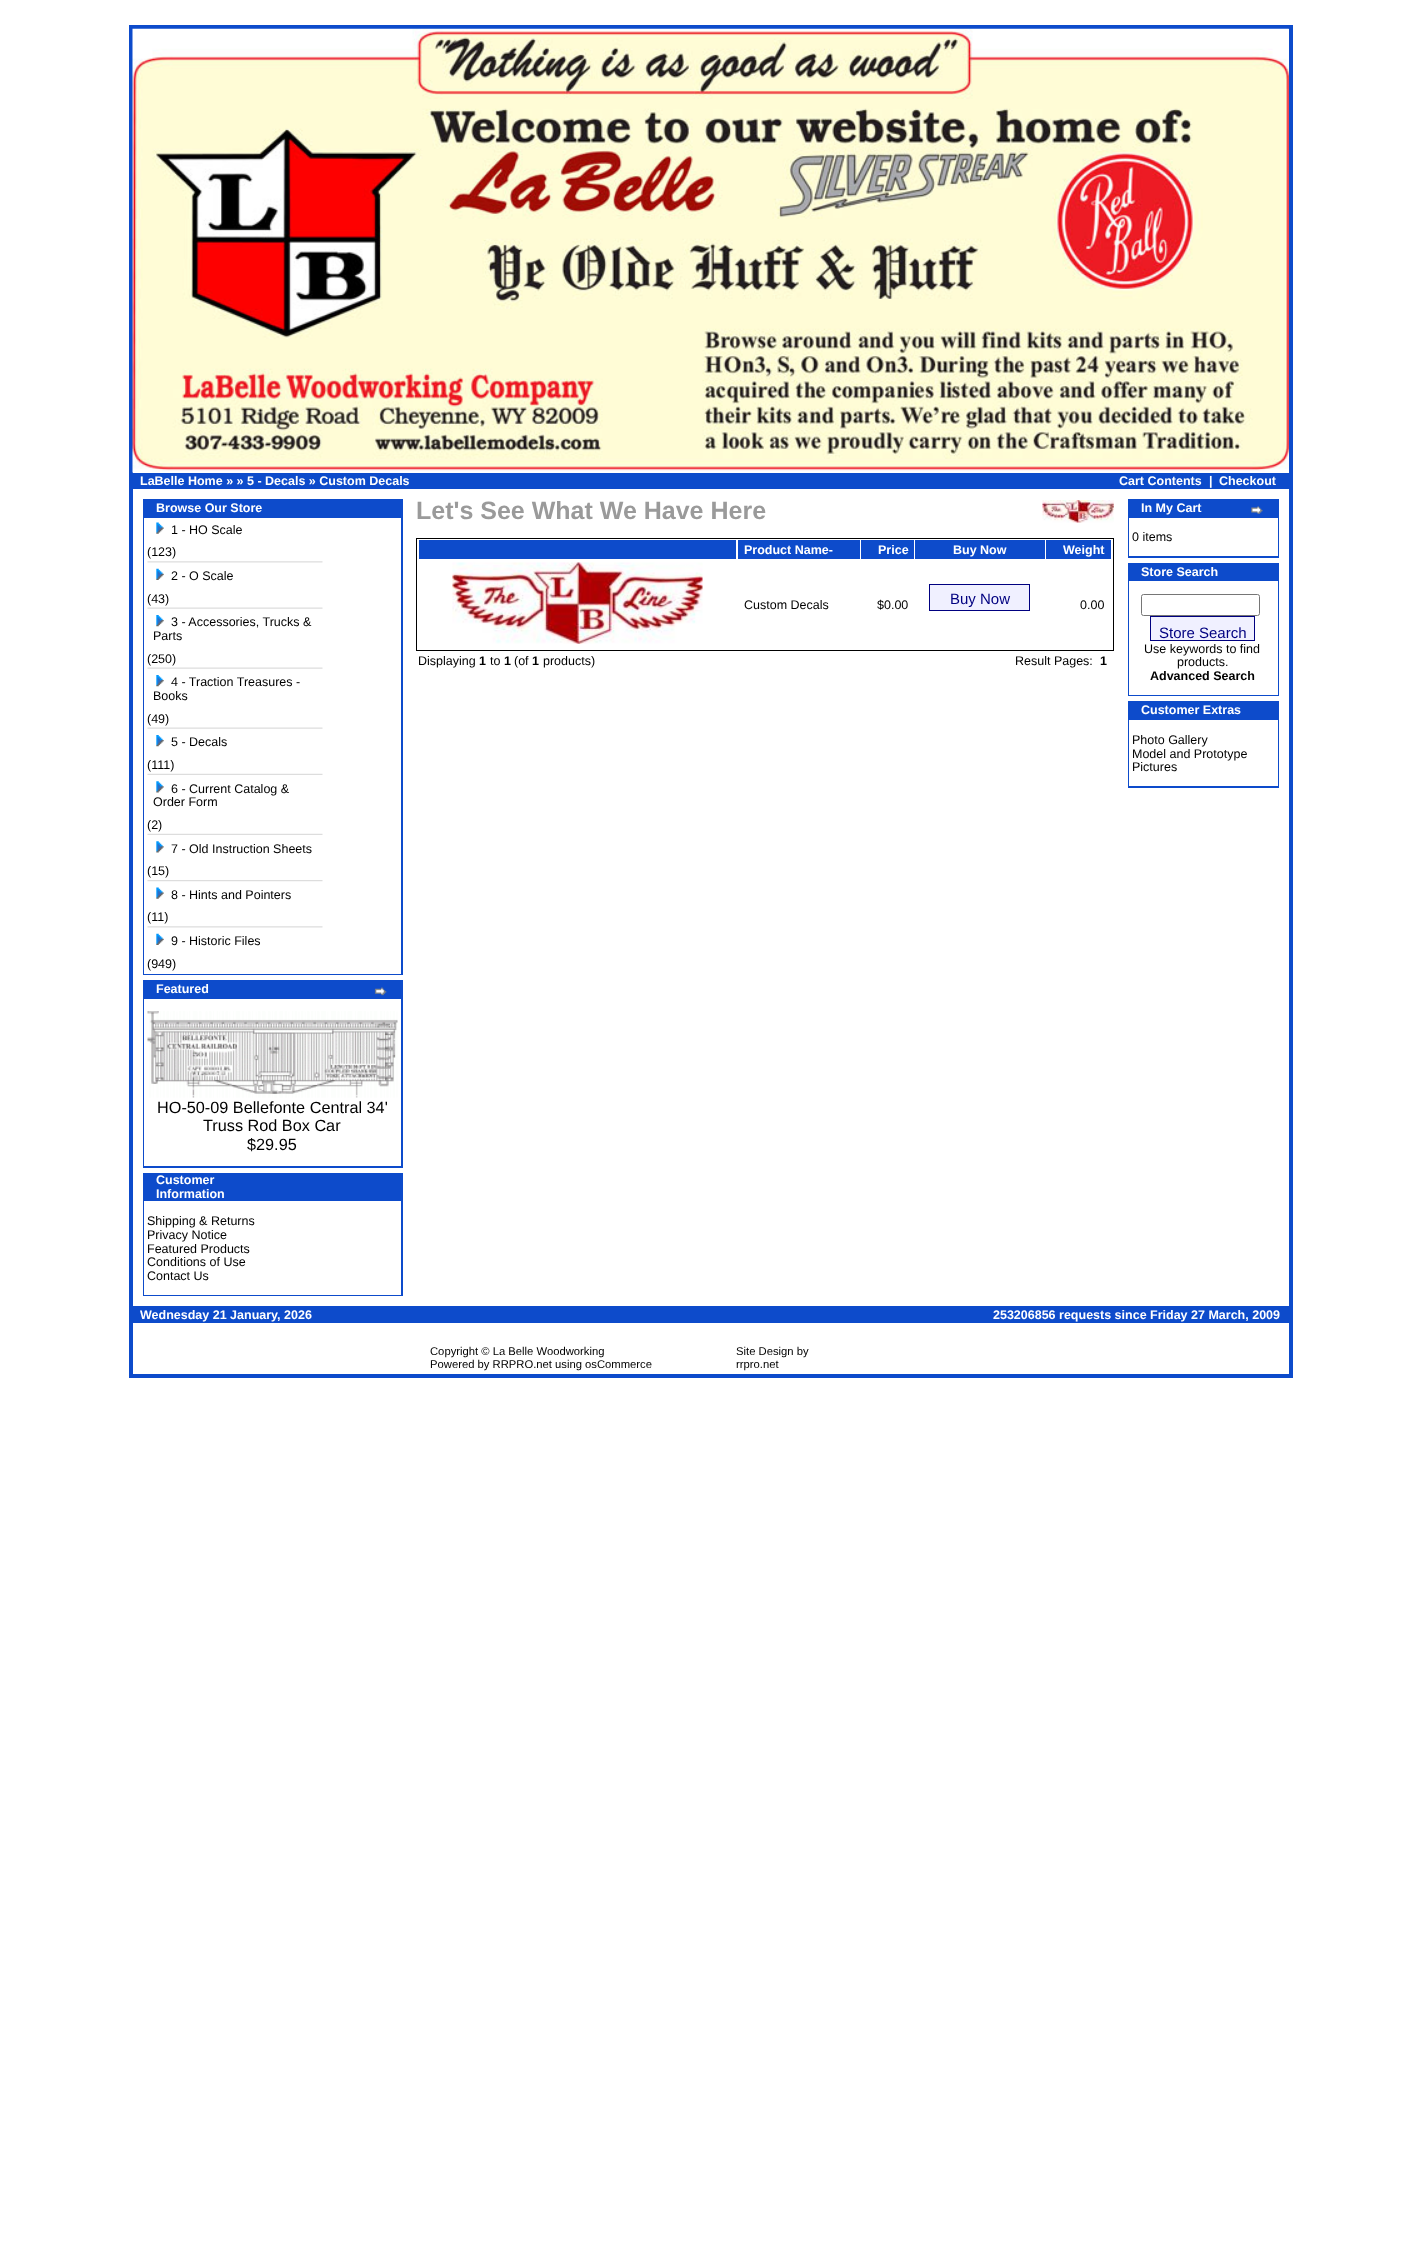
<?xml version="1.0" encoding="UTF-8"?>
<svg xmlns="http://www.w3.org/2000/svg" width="1419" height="2260">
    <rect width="100%" height="100%" fill="#FFFFFF"/>
    <rect x="131" y="27" width="1160" height="1349" fill="none" stroke="#0D4BCB" stroke-width="4"/>
    <image x="132" y="28" width="1157" height="445" href="img_01.png"/>
    <rect x="133" y="473" width="1156" height="16" fill="#0D4BCB"/>
    <text x="140" y="485" font-family="Liberation Sans" font-size="12.5" font-weight="700" fill="#FFFFFF">LaBelle Home » » 5 - Decals » Custom Decals</text>
    <text x="1119" y="485" font-family="Liberation Sans" font-size="12.5" font-weight="700" fill="#FFFFFF">Cart Contents</text>
    <text x="1209" y="485" font-family="Liberation Sans" font-size="12.5" font-weight="700" fill="#FFFFFF">|</text>
    <text x="1219" y="485" font-family="Liberation Sans" font-size="12.5" font-weight="700" fill="#FFFFFF">Checkout</text>
    <rect x="143" y="499" width="260" height="476" fill="#0D4BCB"/>
    <text x="156" y="512" font-family="Liberation Sans" font-size="12.5" font-weight="700" fill="#FFFFFF">Browse Our Store</text>
    <rect x="144" y="518" width="257" height="456" fill="#FFFFFF"/>
    <image x="156" y="522" width="8" height="12" href="img_02.png"/>
    <text x="171" y="534" font-family="Liberation Sans" font-size="12.5" fill="#000000">1 - HO Scale</text>
    <text x="147" y="556" font-family="Liberation Sans" font-size="12.5" fill="#000000">(123)</text>
    <image x="147" y="561" width="176" height="2" href="img_03.png"/>
    <image x="156" y="568" width="8" height="12" href="img_04.png"/>
    <text x="171" y="580" font-family="Liberation Sans" font-size="12.5" fill="#000000">2 - O Scale</text>
    <text x="147" y="603" font-family="Liberation Sans" font-size="12.5" fill="#000000">(43)</text>
    <image x="147" y="607" width="176" height="2" href="img_05.png"/>
    <image x="156" y="615" width="8" height="12" href="img_06.png"/>
    <text x="171" y="626" font-family="Liberation Sans" font-size="12.5" fill="#000000">3 - Accessories, Trucks &amp;</text>
    <text x="153" y="640" font-family="Liberation Sans" font-size="12.5" fill="#000000">Parts</text>
    <text x="147" y="663" font-family="Liberation Sans" font-size="12.5" fill="#000000">(250)</text>
    <image x="147" y="667" width="176" height="2" href="img_05.png"/>
    <image x="156" y="675" width="8" height="12" href="img_06.png"/>
    <text x="171" y="686" font-family="Liberation Sans" font-size="12.5" fill="#000000">4 - Traction Treasures -</text>
    <text x="153" y="700" font-family="Liberation Sans" font-size="12.5" fill="#000000">Books</text>
    <text x="147" y="723" font-family="Liberation Sans" font-size="12.5" fill="#000000">(49)</text>
    <image x="147" y="727" width="176" height="2" href="img_05.png"/>
    <image x="156" y="735" width="8" height="12" href="img_06.png"/>
    <text x="171" y="746" font-family="Liberation Sans" font-size="12.5" fill="#000000">5 - Decals</text>
    <text x="147" y="769" font-family="Liberation Sans" font-size="12.5" fill="#000000">(111)</text>
    <image x="147" y="773" width="176" height="2" href="img_07.png"/>
    <image x="156" y="781" width="8" height="12" href="img_08.png"/>
    <text x="171" y="793" font-family="Liberation Sans" font-size="12.5" fill="#000000">6 - Current Catalog &amp;</text>
    <text x="153" y="806" font-family="Liberation Sans" font-size="12.5" fill="#000000">Order Form</text>
    <text x="147" y="829" font-family="Liberation Sans" font-size="12.5" fill="#000000">(2)</text>
    <image x="147" y="833" width="176" height="2" href="img_07.png"/>
    <image x="156" y="841" width="8" height="12" href="img_09.png"/>
    <text x="171" y="853" font-family="Liberation Sans" font-size="12.5" fill="#000000">7 - Old Instruction Sheets</text>
    <text x="147" y="875" font-family="Liberation Sans" font-size="12.5" fill="#000000">(15)</text>
    <image x="147" y="880" width="176" height="2" href="img_10.png"/>
    <image x="156" y="887" width="8" height="12" href="img_02.png"/>
    <text x="171" y="899" font-family="Liberation Sans" font-size="12.5" fill="#000000">8 - Hints and Pointers</text>
    <text x="147" y="921" font-family="Liberation Sans" font-size="12.5" fill="#000000">(11)</text>
    <image x="147" y="926" width="176" height="2" href="img_03.png"/>
    <image x="156" y="933" width="8" height="12" href="img_04.png"/>
    <text x="171" y="945" font-family="Liberation Sans" font-size="12.5" fill="#000000">9 - Historic Files</text>
    <text x="147" y="968" font-family="Liberation Sans" font-size="12.5" fill="#000000">(949)</text>
    <rect x="143" y="980" width="260" height="188" fill="#0D4BCB"/>
    <text x="156" y="993" font-family="Liberation Sans" font-size="12.5" font-weight="700" fill="#FFFFFF">Featured</text>
    <image x="374" y="987" width="13" height="9" href="img_11.png"/>
    <rect x="144" y="999" width="257" height="167" fill="#FFFFFF"/>
    <image x="147" y="1011" width="251" height="87" href="img_12.png"/>
    <text x="157" y="1113" font-family="Liberation Sans" font-size="16.25" fill="#000000">HO-50-09 Bellefonte Central 34'</text>
    <text x="203" y="1131" font-family="Liberation Sans" font-size="16.25" fill="#000000">Truss Rod Box Car</text>
    <text x="247" y="1150" font-family="Liberation Sans" font-size="16.25" fill="#000000">$29.95</text>
    <rect x="143" y="1173" width="260" height="123" fill="#0D4BCB"/>
    <text font-family="Liberation Sans" font-size="12.5" font-weight="700" fill="#FFFFFF">
        <tspan x="156" y="1184">Customer</tspan>
        <tspan x="156" y="1198">Information</tspan>
    </text>
    <rect x="144" y="1201" width="257" height="94" fill="#FFFFFF"/>
    <text font-family="Liberation Sans" font-size="12.5" fill="#000000">
        <tspan x="147" y="1225">Shipping &amp; Returns</tspan>
        <tspan x="147" y="1239">Privacy Notice</tspan>
        <tspan x="147" y="1253">Featured Products</tspan>
        <tspan x="147" y="1266">Conditions of Use</tspan>
        <tspan x="147" y="1280">Contact Us</tspan>
    </text>
    <text x="416" y="519" font-family="Liberation Sans" font-size="25" font-weight="700" fill="#9A9A9A">Let's See What We Have Here</text>
    <image x="1042" y="500" width="72" height="23" href="img_13.png"/>
    <rect x="416.5" y="538.5" width="697" height="112" fill="none" stroke="#000000"/>
    <rect x="419" y="540" width="317" height="19" fill="#0D4BCB"/>
    <rect x="738" y="540" width="122" height="19" fill="#0D4BCB"/>
    <text x="744" y="554" font-family="Liberation Sans" font-size="12.5" font-weight="700" fill="#FFFFFF">Product Name-</text>
    <rect x="861" y="540" width="53" height="19" fill="#0D4BCB"/>
    <text x="878" y="554" font-family="Liberation Sans" font-size="12.5" font-weight="700" fill="#FFFFFF">Price</text>
    <rect x="915" y="540" width="130" height="19" fill="#0D4BCB"/>
    <text x="953" y="554" font-family="Liberation Sans" font-size="12.5" font-weight="700" fill="#FFFFFF">Buy Now</text>
    <rect x="1046" y="540" width="65" height="19" fill="#0D4BCB"/>
    <text x="1063" y="554" font-family="Liberation Sans" font-size="12.5" font-weight="700" fill="#FFFFFF">Weight</text>
    <image x="452" y="562" width="251" height="82" href="img_14.png"/>
    <text x="744" y="609" font-family="Liberation Sans" font-size="12.5" fill="#000000">Custom Decals</text>
    <text x="877" y="609" font-family="Liberation Sans" font-size="12.5" fill="#000000">$0.00</text>
    <rect x="929.5" y="584.5" width="100" height="26" fill="#F0F0FF" stroke="#000080"/>
    <text x="950" y="604" font-family="Liberation Sans" font-size="15" fill="#000080">Buy Now</text>
    <text x="1080" y="609" font-family="Liberation Sans" font-size="12.5" fill="#000000">0.00</text>
    <text x="418" y="665" font-family="Liberation Sans" font-size="12.5" fill="#000000">Displaying</text>
    <text x="479" y="665" font-family="Liberation Sans" font-size="12.5" font-weight="700" fill="#000000">1</text>
    <text x="490" y="665" font-family="Liberation Sans" font-size="12.5" fill="#000000">to</text>
    <text x="504" y="665" font-family="Liberation Sans" font-size="12.5" font-weight="700" fill="#000000">1</text>
    <text x="514" y="665" font-family="Liberation Sans" font-size="12.5" fill="#000000">(of</text>
    <text x="532" y="665" font-family="Liberation Sans" font-size="12.5" font-weight="700" fill="#000000">1</text>
    <text x="543" y="665" font-family="Liberation Sans" font-size="12.5" fill="#000000">products)</text>
    <text x="1015" y="665" font-family="Liberation Sans" font-size="12.5" fill="#000000">Result Pages:</text>
    <text x="1100" y="665" font-family="Liberation Sans" font-size="12.5" font-weight="700" fill="#000000">1</text>
    <rect x="1128" y="499" width="151" height="59" fill="#0D4BCB"/>
    <text x="1141" y="512" font-family="Liberation Sans" font-size="12.5" font-weight="700" fill="#FFFFFF">In My Cart</text>
    <image x="1251" y="506" width="12" height="8" href="img_15.png"/>
    <rect x="1129" y="518" width="149" height="38" fill="#FFFFFF"/>
    <text x="1132" y="541" font-family="Liberation Sans" font-size="12.5" fill="#000000">0 items</text>
    <rect x="1128" y="563" width="151" height="133" fill="#0D4BCB"/>
    <text x="1141" y="576" font-family="Liberation Sans" font-size="12.5" font-weight="700" fill="#FFFFFF">Store Search</text>
    <rect x="1129" y="581" width="149" height="114" fill="#FFFFFF"/>
    <rect x="1141.5" y="594.5" width="118" height="21" rx="2" fill="none" stroke="#767676"/>
    <rect x="1150.5" y="616.5" width="104" height="24" fill="#F0F0FF" stroke="#000080"/>
    <text x="1159" y="638" font-family="Liberation Sans" font-size="15" fill="#000080">Store Search</text>
    <text x="1144" y="653" font-family="Liberation Sans" font-size="12.5" fill="#000000">Use keywords to find</text>
    <text x="1177" y="666" font-family="Liberation Sans" font-size="12.5" fill="#000000">products.</text>
    <text x="1150" y="680" font-family="Liberation Sans" font-size="12.5" font-weight="700" fill="#000000">Advanced Search</text>
    <rect x="1128" y="701" width="151" height="87" fill="#0D4BCB"/>
    <text x="1141" y="714" font-family="Liberation Sans" font-size="12.5" font-weight="700" fill="#FFFFFF">Customer Extras</text>
    <rect x="1129" y="720" width="149" height="66" fill="#FFFFFF"/>
    <text font-family="Liberation Sans" font-size="12.5" fill="#000000">
        <tspan x="1132" y="744">Photo Gallery</tspan>
        <tspan x="1132" y="758">Model and Prototype</tspan>
        <tspan x="1132" y="771">Pictures</tspan>
    </text>
    <rect x="133" y="1306" width="1156" height="17" fill="#0D4BCB"/>
    <text x="140" y="1319" font-family="Liberation Sans" font-size="12.5" font-weight="700" fill="#FFFFFF">Wednesday 21 January, 2026</text>
    <text x="993" y="1319" font-family="Liberation Sans" font-size="12.5" font-weight="700" fill="#FFFFFF">253206856 requests since Friday 27 March, 2009</text>
    <text font-family="Liberation Sans" font-size="11.25" fill="#000000">
        <tspan x="430" y="1355">Copyright © La Belle Woodworking</tspan>
        <tspan x="430" y="1368">Powered by RRPRO.net using osCommerce</tspan>
    </text>
    <text font-family="Liberation Sans" font-size="11.25" fill="#000000">
        <tspan x="736" y="1355">Site Design by</tspan>
        <tspan x="736" y="1368">rrpro.net</tspan>
    </text>
</svg>
